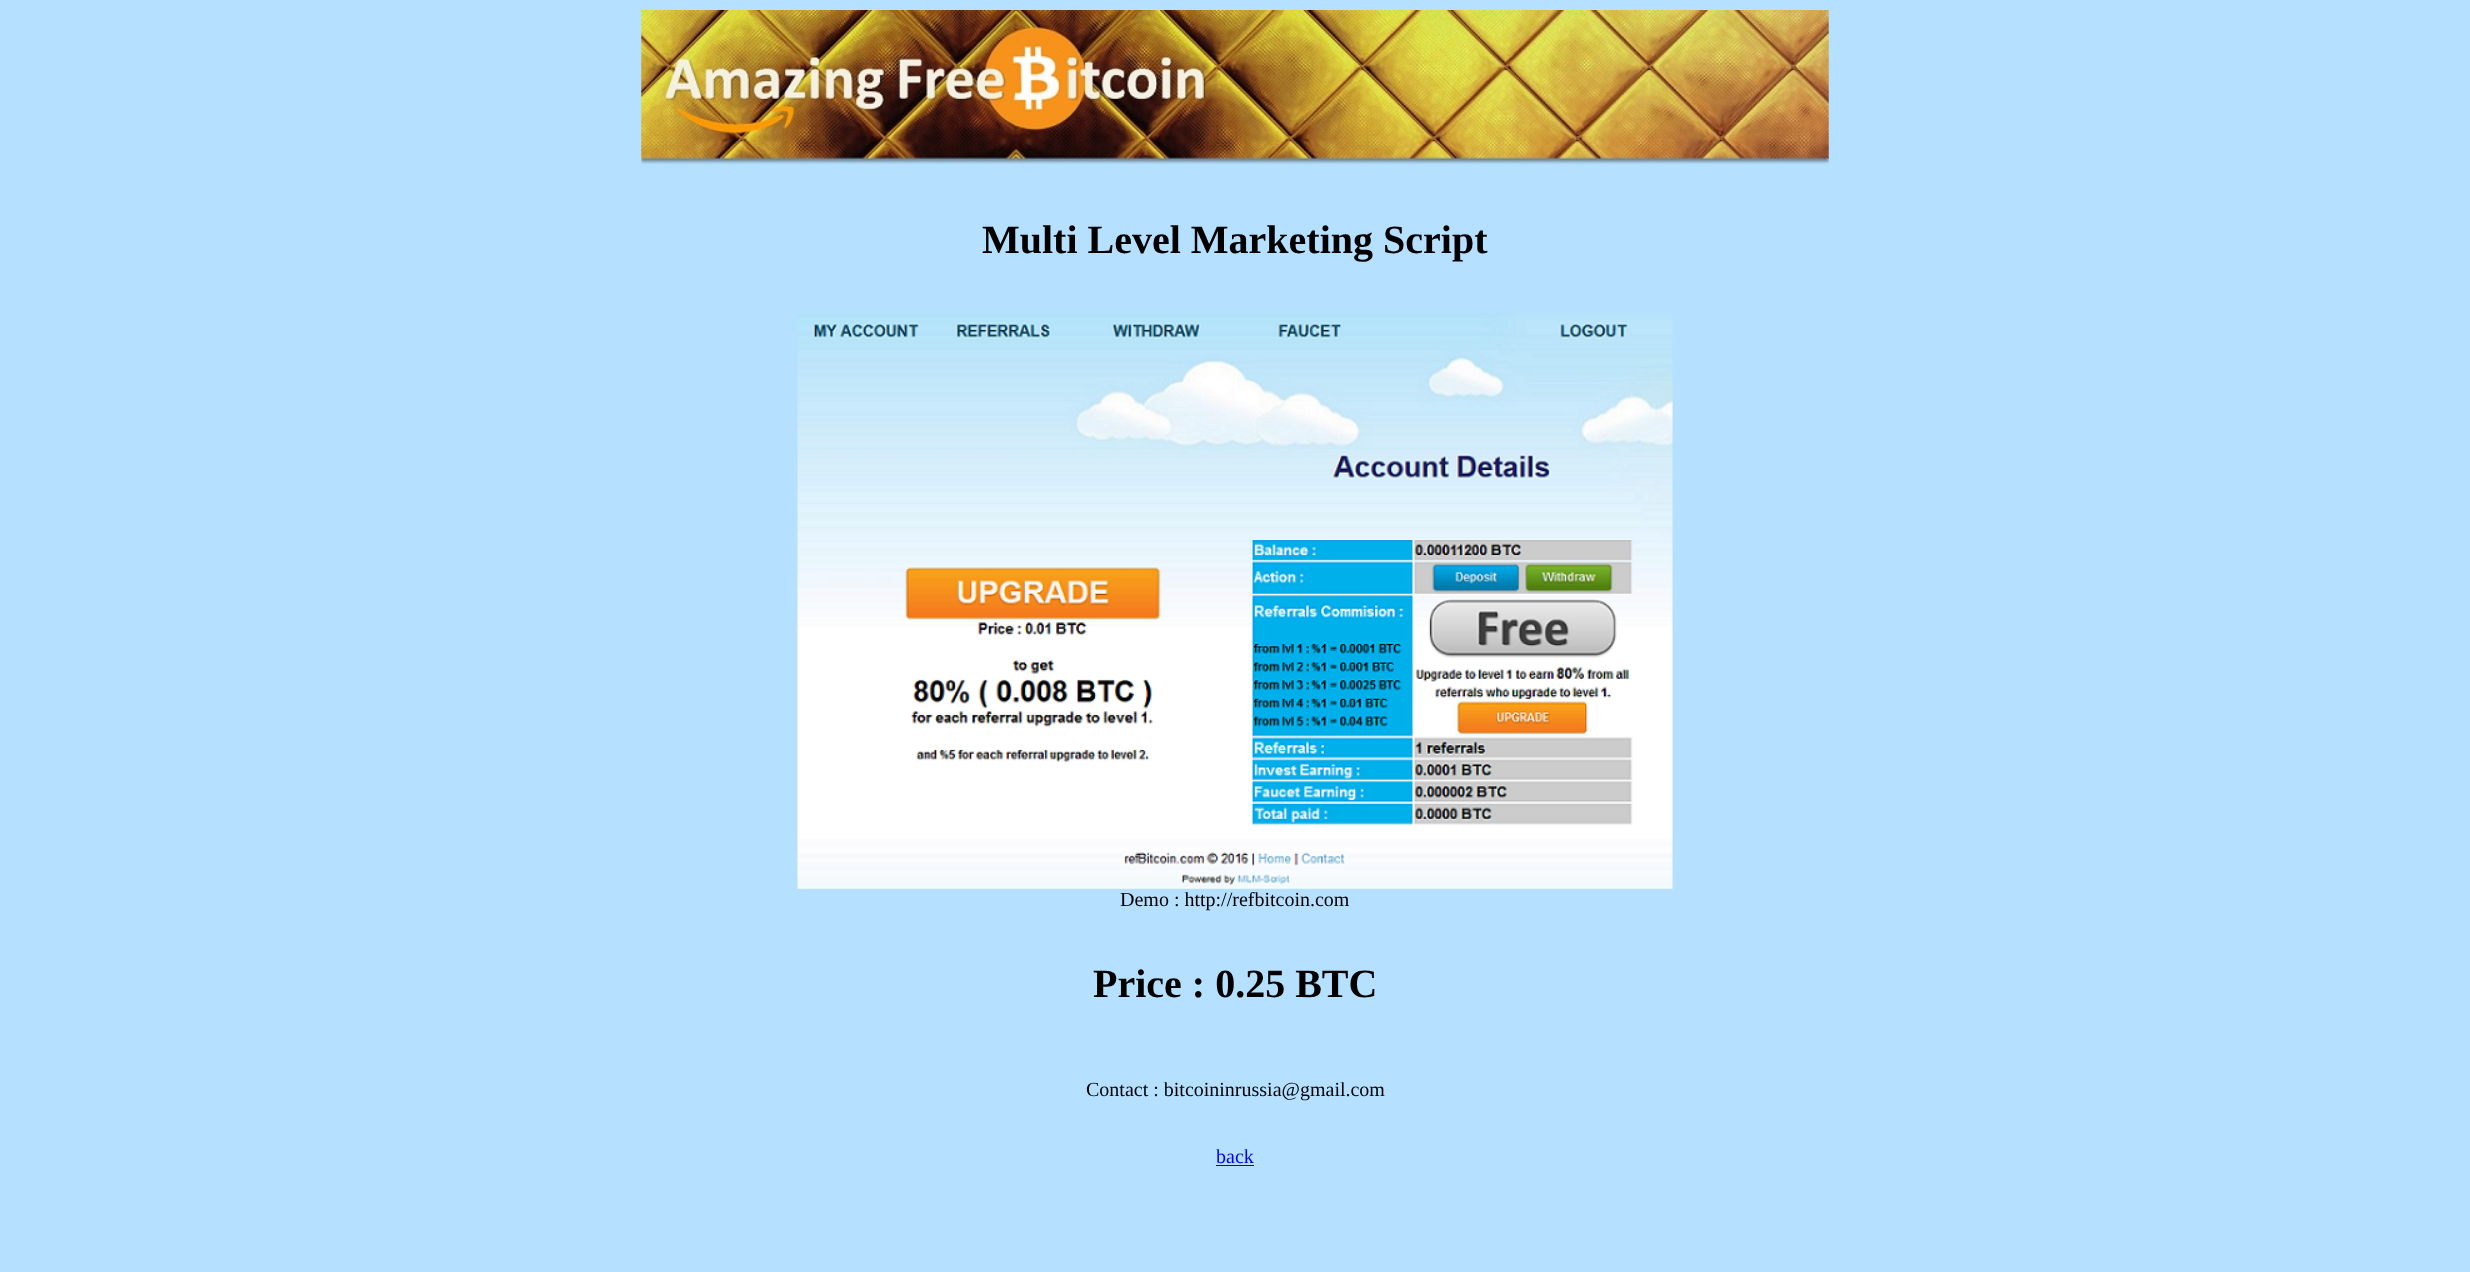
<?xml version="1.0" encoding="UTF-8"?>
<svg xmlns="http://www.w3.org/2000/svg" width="2470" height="1272">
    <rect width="100%" height="100%" fill="#B5E0FF"/>
    <image x="641" y="10" width="1188" height="158" href="img_01.png"/>
    <text x="982" y="253" font-family="Liberation Serif" font-size="40" font-weight="700" fill="#000000">Multi Level Marketing Script</text>
    <image x="797" y="312" width="876" height="577" href="img_02.png"/>
    <text x="1120" y="906" font-family="Liberation Serif" font-size="20" fill="#000000">Demo : http://refbitcoin.com</text>
    <text x="1093" y="997" font-family="Liberation Serif" font-size="40" font-weight="700" fill="#000000">Price : 0.25 BTC</text>
    <text x="1086" y="1096" font-family="Liberation Serif" font-size="20" fill="#000000">Contact : bitcoininrussia@gmail.com</text>
    <text x="1216" y="1163" font-family="Liberation Serif" font-size="20" fill="#0000EE">back</text>
    <rect x="1216" y="1165" width="38" height="1" fill="#0000EE"/>
</svg>
